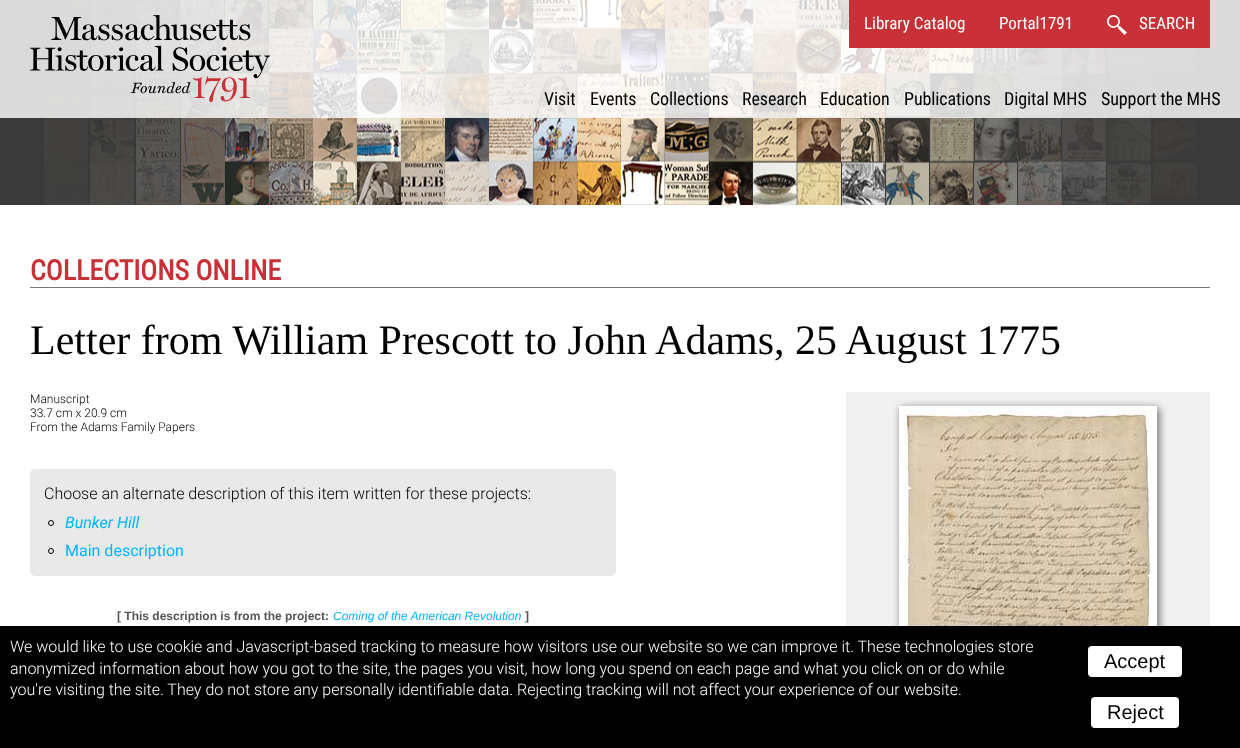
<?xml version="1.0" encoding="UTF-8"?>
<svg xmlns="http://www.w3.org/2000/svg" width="1240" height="748">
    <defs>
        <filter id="blur1" x="-50%" y="-200%" width="200%" height="500%"><feGaussianBlur stdDeviation="4"/></filter>
    </defs>
    <rect width="100%" height="100%" fill="#FFFFFF"/>
    <rect x="0" y="0" width="1240" height="205" fill="#3A3A3A"/>
    <image x="44" y="0" width="1154" height="205" href="img_01.png"/>
    <rect x="0" y="0" width="1240" height="118" fill="#FFFFFF" fill-opacity="0.81"/>
    <image x="30" y="15" width="240" height="87" href="img_02.png"/>
    <rect x="849" y="0" width="361" height="48" fill="#C83138"/>
    <text x="864" y="29" font-family="Roboto Condensed" font-size="17" fill="#FFFFFF">Library Catalog</text>
    <text x="999" y="29" font-family="Roboto Condensed" font-size="17" fill="#FFFFFF">Portal1791</text>
    <image x="1107" y="15" width="20" height="20" href="img_03.png"/>
    <text x="1139" y="29" font-family="Roboto Condensed" font-size="17" fill="#FFFFFF">SEARCH</text>
    <text x="544" y="105" font-family="Roboto Condensed" font-size="18" letter-spacing="-0.1" fill="#000000">Visit</text>
    <text x="590" y="105" font-family="Roboto Condensed" font-size="18" letter-spacing="-0.1" fill="#000000">Events</text>
    <text x="650" y="105" font-family="Roboto Condensed" font-size="18" letter-spacing="-0.1" fill="#000000">Collections</text>
    <text x="742" y="105" font-family="Roboto Condensed" font-size="18" letter-spacing="-0.1" fill="#000000">Research</text>
    <text x="820" y="105" font-family="Roboto Condensed" font-size="18" letter-spacing="-0.1" fill="#000000">Education</text>
    <text x="904" y="105" font-family="Roboto Condensed" font-size="18" letter-spacing="-0.1" fill="#000000">Publications</text>
    <text x="1004" y="105" font-family="Roboto Condensed" font-size="18" letter-spacing="-0.1" fill="#000000">Digital MHS</text>
    <text x="1101" y="105" font-family="Roboto Condensed" font-size="18" letter-spacing="-0.1" fill="#000000">Support the MHS</text>
    <rect x="30" y="287" width="1180" height="1" fill="#777777"/>
    <text x="30" y="280" font-family="Roboto Condensed" font-size="28" font-weight="700" fill="#C83138">COLLECTIONS ONLINE</text>
    <text x="30" y="354" font-family="Liberation Serif" font-size="42" fill="#000000">Letter from William Prescott to John Adams, 25 August 1775</text>
    <text font-family="Roboto" font-size="12" font-weight="300" fill="#000000">
        <tspan x="30" y="403">Manuscript</tspan>
        <tspan x="30" y="417">33.7 cm x 20.9 cm</tspan>
        <tspan x="30" y="431">From the Adams Family Papers</tspan>
    </text>
    <rect x="846" y="392" width="364" height="234" fill="#F1F1F1"/>
    <rect x="901" y="408" width="258" height="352" fill="#666666" filter="url(#blur1)"/>
    <rect x="901" y="408" width="254" height="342" fill="none" stroke="#FFFFFF" stroke-width="4"/>
    <image x="903" y="410" width="250" height="216" href="img_04.png"/>
    <rect x="30" y="469" width="586" height="107" rx="5" fill="#E9E9E9"/>
    <text x="44" y="499" font-family="Roboto" font-size="16" font-weight="300" fill="#000000">Choose an alternate description of this item written for these projects:</text>
    <circle cx="51" cy="523" r="2.5" fill="none" stroke="#000000"/>
    <text x="65" y="528" font-family="Roboto" font-size="16" font-style="italic" fill="#00B4FF">Bunker Hill</text>
    <circle cx="51" cy="551" r="2.5" fill="none" stroke="#000000"/>
    <text x="65" y="556" font-family="Roboto" font-size="16" fill="#00B4FF">Main description</text>
    <text x="117" y="620" font-family="Liberation Sans" font-size="12" font-weight="700" fill="#555555">[ This description is from the project:</text>
    <text x="333" y="620" font-family="Liberation Sans" font-size="12" font-style="italic" fill="#00B4FF">Coming of the American Revolution</text>
    <text x="525" y="620" font-family="Liberation Sans" font-size="12" font-weight="700" fill="#555555">]</text>
    <rect x="0" y="626" width="1240" height="122" fill="#000000"/>
    <text font-family="Roboto" font-size="16" font-weight="300" fill="#FFFFFF">
        <tspan x="10" y="652">We would like to use cookie and Javascript-based tracking to measure how visitors use our website so we can improve it. These technologies store</tspan>
        <tspan x="10" y="674">anonymized information about how you got to the site, the pages you visit, how long you spend on each page and what you click on or do while</tspan>
        <tspan x="10" y="695">you're visiting the site. They do not store any personally identifiable data. Rejecting tracking will not affect your experience of our website.</tspan>
    </text>
    <rect x="1088" y="646" width="94" height="31" rx="4" fill="#FFFFFF"/>
    <text x="1104" y="668" font-family="Liberation Sans" font-size="20" fill="#000000">Accept</text>
    <rect x="1091" y="697" width="88" height="31" rx="4" fill="#FFFFFF"/>
    <text x="1107" y="719" font-family="Liberation Sans" font-size="20" fill="#000000">Reject</text>
</svg>
